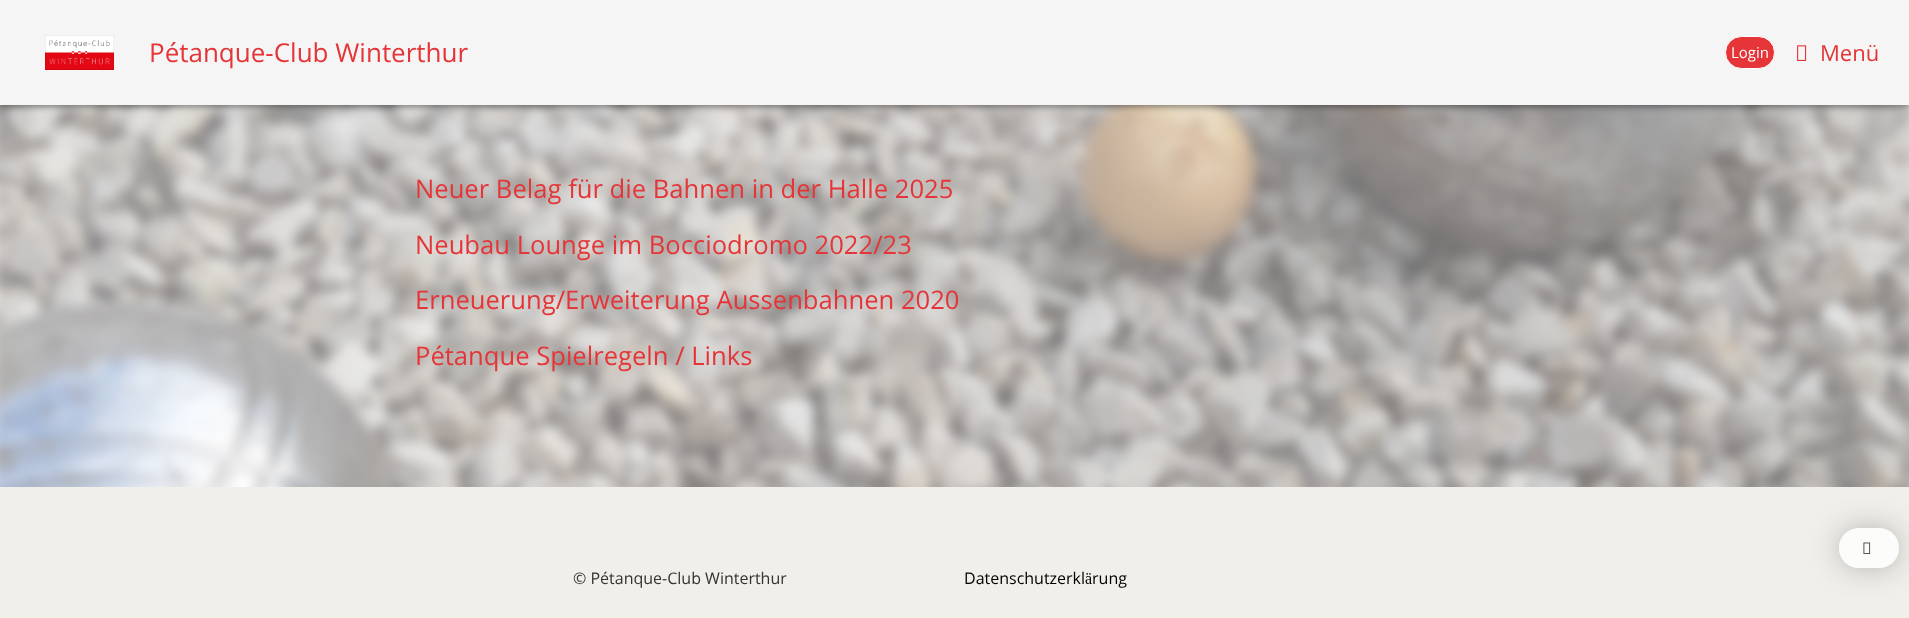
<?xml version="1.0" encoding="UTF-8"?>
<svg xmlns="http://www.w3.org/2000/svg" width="1909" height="618">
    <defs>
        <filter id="blur1" x="-50%" y="-200%" width="200%" height="500%"><feGaussianBlur stdDeviation="6"/></filter>
        <filter id="blur2" x="-50%" y="-200%" width="200%" height="500%"><feGaussianBlur stdDeviation="5"/></filter>
        <filter id="blur3" x="-50%" y="-200%" width="200%" height="500%"><feGaussianBlur stdDeviation="2.5"/></filter>
        <filter id="blur4" x="-50%" y="-200%" width="200%" height="500%"><feGaussianBlur stdDeviation="2"/></filter>
        <clipPath id="clip1"><path d="M 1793 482 H 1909 V 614 H 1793 Z M 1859 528 H 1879 C 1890 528 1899 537 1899 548 C 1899 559 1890 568 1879 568 H 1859 C 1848 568 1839 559 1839 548 C 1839 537 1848 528 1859 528 Z" clip-rule="evenodd"/></clipPath>
        <filter id="blur5" x="-50%" y="-200%" width="200%" height="500%"><feGaussianBlur stdDeviation="15"/></filter>
    </defs>
    <rect width="100%" height="100%" fill="#FFFFFF"/>
    <image x="0" y="105" width="1909" height="382" href="img_01.png"/>
    <rect x="-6" y="-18" width="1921" height="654" fill="#FFFFFF" fill-opacity="0.4" filter="url(#blur1)"/>
    <rect x="0" y="1" width="1909" height="105" fill="#000000" fill-opacity="0.12" filter="url(#blur2)"/>
    <rect x="0" y="4" width="1909" height="105" fill="#000000" fill-opacity="0.14" filter="url(#blur3)"/>
    <rect x="1" y="3" width="1907" height="103" fill="#000000" fill-opacity="0.2" filter="url(#blur4)"/>
    <rect x="0" y="0" width="1909" height="105" fill="#F5F5F5"/>
    <image x="45" y="35" width="69" height="35" href="img_02.png"/>
    <text x="149" y="62" font-family="Open Sans" font-size="26" fill="#E53538">Pétanque-Club Winterthur</text>
    <rect x="1725.5" y="36.5" width="49" height="32" rx="16" fill="#E53538" stroke="#FFFFFF"/>
    <text x="1731" y="58" font-family="Open Sans" font-size="15" fill="#FFFFFF">Login</text>
    <image x="1797" y="45" width="10" height="16" href="img_03.png"/>
    <text x="1820" y="61" font-family="Open Sans" font-size="22" fill="#E53538">Menü</text>
    <text x="415" y="198" font-family="Open Sans" font-size="25.6" fill="#E53538">Neuer Belag für die Bahnen in der Halle 2025</text>
    <text x="415" y="254" font-family="Open Sans" font-size="25.6" fill="#E53538">Neubau Lounge im Bocciodromo 2022/23</text>
    <text x="415" y="309" font-family="Open Sans" font-size="25.6" fill="#E53538">Erneuerung/Erweiterung Aussenbahnen 2020</text>
    <text x="415" y="365" font-family="Open Sans" font-size="25.6" fill="#E53538">Pétanque Spielregeln / Links</text>
    <rect x="0" y="487" width="1909" height="131" fill="#F0EFEA"/>
    <text x="573" y="584" font-family="Open Sans" font-size="16" fill="#333333">© Pétanque-Club Winterthur</text>
    <text x="964" y="584" font-family="Open Sans" font-size="16" fill="#000000">Datenschutzerklärung</text>
    <g clip-path="url(#clip1)">
        <rect x="1839" y="528" width="60" height="40" rx="20" fill="#000000" fill-opacity="0.25" filter="url(#blur5)"/>
    </g>
    <rect x="1839" y="528" width="60" height="40" rx="20" fill="#FFFFFF" fill-opacity="0.8"/>
    <image x="1863" y="542" width="8" height="12" href="img_04.png"/>
</svg>
